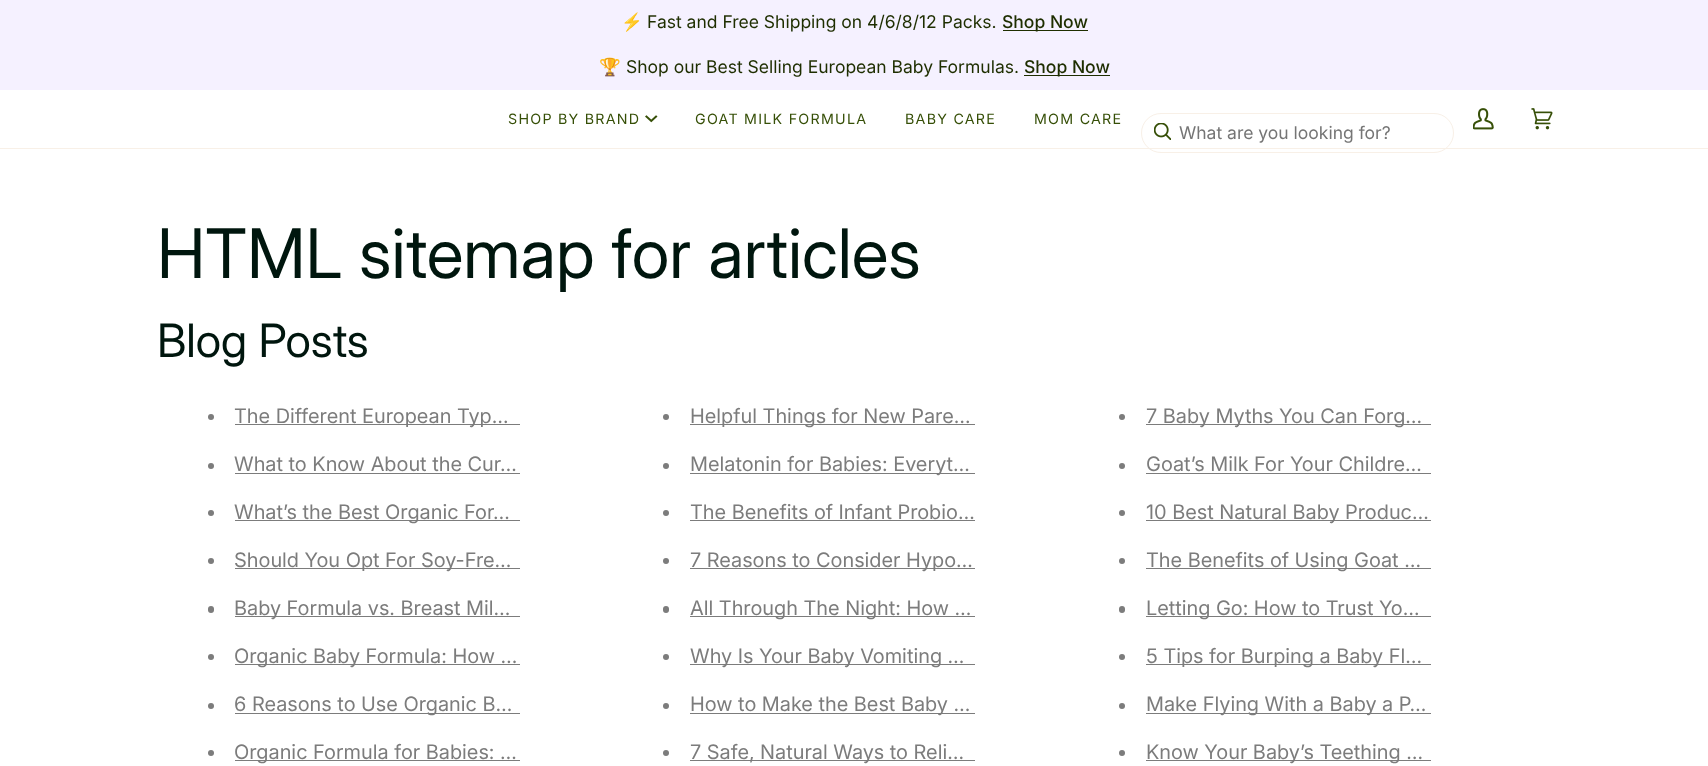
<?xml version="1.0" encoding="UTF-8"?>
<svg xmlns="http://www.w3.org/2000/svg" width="1708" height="766">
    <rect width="100%" height="100%" fill="#FFFFFF"/>
    <rect x="0" y="0" width="1708" height="90" fill="#F5F1FF"/>
    <text x="621" y="28" font-family="Noto Color Emoji" font-size="17.5" fill="#1E2E00">⚡</text>
    <text x="647" y="28" font-family="'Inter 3'" font-size="17.5" fill="#1E2E00">Fast and Free Shipping on 4/6/8/12 Packs.</text>
    <rect x="1003" y="30" width="85" height="1" fill="#1E2E00"/>
    <text x="1002" y="28" font-family="Inter" font-size="17.5" font-weight="500" fill="#1E2E00">Shop Now</text>
    <text x="599" y="73" font-family="Noto Color Emoji" font-size="17.5" fill="#1E2E00">🏆</text>
    <text x="626" y="73" font-family="'Inter 3'" font-size="17.5" fill="#1E2E00">Shop our Best Selling European Baby Formulas.</text>
    <rect x="1024" y="75" width="86" height="1" fill="#1E2E00"/>
    <text x="1024" y="73" font-family="Inter" font-size="17.5" font-weight="500" fill="#1E2E00">Shop Now</text>
    <rect x="0" y="148" width="1708" height="1" fill="#F8F0E7"/>
    <text x="508" y="124" font-family="'Inter 3'" font-size="14.25" letter-spacing="1.25" fill="#364F07">SHOP BY BRAND</text>
    <image x="645" y="115" width="13" height="8" href="img_01.png"/>
    <text x="695" y="124" font-family="'Inter 3'" font-size="14.25" letter-spacing="1.25" fill="#364F07">GOAT MILK FORMULA</text>
    <text x="905" y="124" font-family="'Inter 3'" font-size="14.25" letter-spacing="1.25" fill="#364F07">BABY CARE</text>
    <text x="1034" y="124" font-family="'Inter 3'" font-size="14.25" letter-spacing="1.25" fill="#364F07">MOM CARE</text>
    <image x="1473" y="108" width="21" height="22" href="img_02.png"/>
    <image x="1531" y="108" width="22" height="22" href="img_03.png"/>
    <rect x="1141.5" y="113.5" width="312" height="39" rx="19.5" fill="none" stroke="#F8F0E7"/>
    <image x="1154" y="123" width="17" height="17" href="img_04.png"/>
    <text x="1179" y="139" font-family="'Inter 3'" font-size="17.5" fill="#757575">What are you looking for?</text>
    <text x="157" y="278" font-family="Inter" font-size="68.25" fill="#00160E">HTML sitemap for articles</text>
    <text x="157" y="357" font-family="Inter" font-size="46" fill="#00160E">Blog Posts</text>
    <circle cx="211" cy="417" r="3" fill="#7C7C7C"/>
    <rect x="235" y="424" width="285" height="1" fill="#7C7C7C"/>
    <text x="234" y="423" font-family="'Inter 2'" font-size="20" fill="#7C7C7C">The Different European Typ…</text>
    <circle cx="666" cy="417" r="3" fill="#7C7C7C"/>
    <rect x="690" y="424" width="285" height="1" fill="#7C7C7C"/>
    <text x="690" y="423" font-family="'Inter 2'" font-size="20" fill="#7C7C7C">Helpful Things for New Pare…</text>
    <circle cx="1122" cy="417" r="3" fill="#7C7C7C"/>
    <rect x="1146" y="424" width="285" height="1" fill="#7C7C7C"/>
    <text x="1146" y="423" font-family="'Inter 2'" font-size="20" fill="#7C7C7C">7 Baby Myths You Can Forg…</text>
    <circle cx="211" cy="466" r="3" fill="#7C7C7C"/>
    <text x="234" y="471" font-family="'Inter 2'" font-size="20" fill="#7C7C7C">What to Know About the Cur…</text>
    <rect x="235" y="473" width="285" height="1" fill="#7C7C7C"/>
    <circle cx="666" cy="466" r="3" fill="#7C7C7C"/>
    <rect x="690" y="473" width="285" height="1" fill="#7C7C7C"/>
    <text x="690" y="471" font-family="'Inter 2'" font-size="20" fill="#7C7C7C">Melatonin for Babies: Everyt…</text>
    <circle cx="1122" cy="466" r="3" fill="#7C7C7C"/>
    <text x="1146" y="471" font-family="'Inter 2'" font-size="20" fill="#7C7C7C">Goat’s Milk For Your Childre…</text>
    <rect x="1146" y="473" width="285" height="1" fill="#7C7C7C"/>
    <circle cx="211" cy="513" r="3" fill="#7C7C7C"/>
    <rect x="235" y="520" width="285" height="1" fill="#7C7C7C"/>
    <text x="234" y="519" font-family="'Inter 2'" font-size="20" fill="#7C7C7C">What’s the Best Organic For…</text>
    <circle cx="666" cy="513" r="3" fill="#7C7C7C"/>
    <text x="690" y="519" font-family="'Inter 2'" font-size="20" fill="#7C7C7C">The Benefits of Infant Probio…</text>
    <rect x="690" y="520" width="285" height="1" fill="#7C7C7C"/>
    <circle cx="1122" cy="513" r="3" fill="#7C7C7C"/>
    <rect x="1146" y="520" width="285" height="1" fill="#7C7C7C"/>
    <text x="1146" y="519" font-family="'Inter 2'" font-size="20" fill="#7C7C7C">10 Best Natural Baby Produc…</text>
    <circle cx="211" cy="561" r="3" fill="#7C7C7C"/>
    <rect x="235" y="568" width="285" height="1" fill="#7C7C7C"/>
    <text x="234" y="567" font-family="'Inter 2'" font-size="20" fill="#7C7C7C">Should You Opt For Soy-Fre…</text>
    <circle cx="666" cy="561" r="3" fill="#7C7C7C"/>
    <rect x="690" y="568" width="285" height="1" fill="#7C7C7C"/>
    <text x="690" y="567" font-family="'Inter 2'" font-size="20" fill="#7C7C7C">7 Reasons to Consider Hypo…</text>
    <circle cx="1122" cy="561" r="3" fill="#7C7C7C"/>
    <rect x="1146" y="568" width="285" height="1" fill="#7C7C7C"/>
    <text x="1146" y="567" font-family="'Inter 2'" font-size="20" fill="#7C7C7C">The Benefits of Using Goat …</text>
    <rect x="208" y="606" width="6" height="7" rx="3" fill="#7C7C7C"/>
    <rect x="235" y="616" width="285" height="1" fill="#7C7C7C"/>
    <text x="234" y="615" font-family="'Inter 2'" font-size="20" fill="#7C7C7C">Baby Formula vs. Breast Mil…</text>
    <rect x="663" y="606" width="6" height="7" rx="3" fill="#7C7C7C"/>
    <rect x="690" y="616" width="285" height="1" fill="#7C7C7C"/>
    <text x="690" y="615" font-family="'Inter 2'" font-size="20" fill="#7C7C7C">All Through The Night: How …</text>
    <rect x="1119" y="606" width="6" height="7" rx="3" fill="#7C7C7C"/>
    <rect x="1146" y="616" width="285" height="1" fill="#7C7C7C"/>
    <text x="1146" y="615" font-family="'Inter 2'" font-size="20" fill="#7C7C7C">Letting Go: How to Trust Yo…</text>
    <circle cx="211" cy="657" r="3" fill="#7C7C7C"/>
    <rect x="235" y="664" width="285" height="1" fill="#7C7C7C"/>
    <text x="234" y="663" font-family="'Inter 2'" font-size="20" fill="#7C7C7C">Organic Baby Formula: How …</text>
    <circle cx="666" cy="657" r="3" fill="#7C7C7C"/>
    <rect x="690" y="664" width="285" height="1" fill="#7C7C7C"/>
    <text x="690" y="663" font-family="'Inter 2'" font-size="20" fill="#7C7C7C">Why Is Your Baby Vomiting …</text>
    <circle cx="1122" cy="657" r="3" fill="#7C7C7C"/>
    <rect x="1146" y="664" width="285" height="1" fill="#7C7C7C"/>
    <text x="1146" y="663" font-family="'Inter 2'" font-size="20" fill="#7C7C7C">5 Tips for Burping a Baby Fl…</text>
    <circle cx="211" cy="706" r="3" fill="#7C7C7C"/>
    <rect x="235" y="713" width="285" height="1" fill="#7C7C7C"/>
    <text x="234" y="711" font-family="'Inter 2'" font-size="20" fill="#7C7C7C">6 Reasons to Use Organic B…</text>
    <circle cx="666" cy="706" r="3" fill="#7C7C7C"/>
    <rect x="690" y="713" width="285" height="1" fill="#7C7C7C"/>
    <text x="690" y="711" font-family="'Inter 2'" font-size="20" fill="#7C7C7C">How to Make the Best Baby …</text>
    <circle cx="1122" cy="706" r="3" fill="#7C7C7C"/>
    <rect x="1146" y="713" width="285" height="1" fill="#7C7C7C"/>
    <text x="1146" y="711" font-family="'Inter 2'" font-size="20" fill="#7C7C7C">Make Flying With a Baby a P…</text>
    <circle cx="211" cy="753" r="3" fill="#7C7C7C"/>
    <rect x="235" y="760" width="285" height="1" fill="#7C7C7C"/>
    <text x="234" y="759" font-family="'Inter 2'" font-size="20" fill="#7C7C7C">Organic Formula for Babies: …</text>
    <circle cx="666" cy="753" r="3" fill="#7C7C7C"/>
    <rect x="690" y="760" width="285" height="1" fill="#7C7C7C"/>
    <text x="690" y="759" font-family="'Inter 2'" font-size="20" fill="#7C7C7C">7 Safe, Natural Ways to Reli…</text>
    <circle cx="1122" cy="753" r="3" fill="#7C7C7C"/>
    <rect x="1146" y="760" width="285" height="1" fill="#7C7C7C"/>
    <text x="1146" y="759" font-family="'Inter 2'" font-size="20" fill="#7C7C7C">Know Your Baby’s Teething …</text>
</svg>
